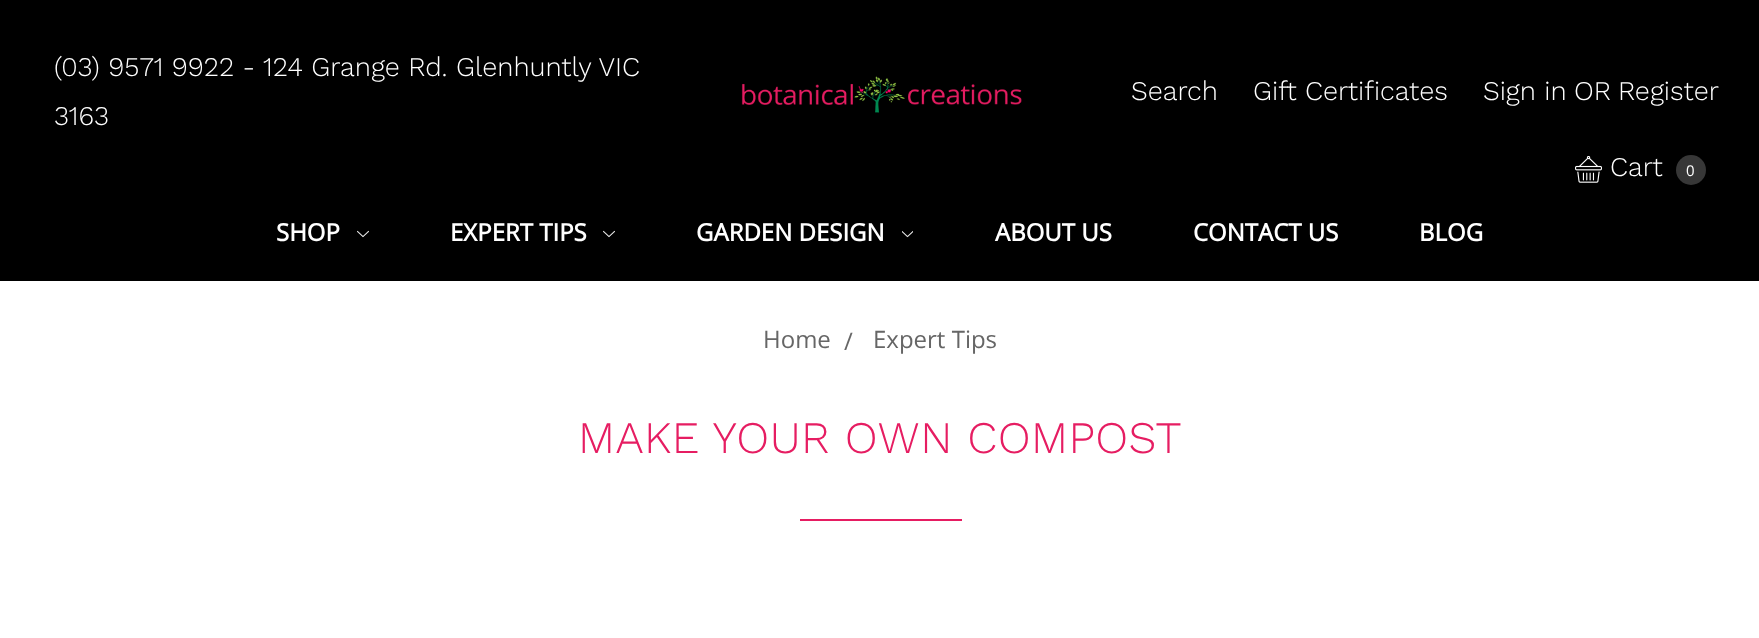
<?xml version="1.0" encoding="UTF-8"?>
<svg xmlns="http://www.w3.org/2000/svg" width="1759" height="638">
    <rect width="100%" height="100%" fill="#FFFFFF"/>
    <rect x="0" y="0" width="1759" height="281" fill="#000000"/>
    <text font-family="Work Sans" font-size="27" font-weight="300" fill="#FFFFFF">
        <tspan x="54" y="76">(03) 9571 9922 - 124 Grange Rd. Glenhuntly VIC</tspan>
        <tspan x="54" y="125">3163</tspan>
    </text>
    <image x="741" y="76" width="281" height="37" href="img_01.png"/>
    <text x="1131" y="100" font-family="Work Sans" font-size="27" font-weight="300" fill="#FFFFFF">Search</text>
    <text x="1253" y="100" font-family="Work Sans" font-size="27" font-weight="300" fill="#FFFFFF">Gift Certificates</text>
    <text x="1483" y="100" font-family="Work Sans" font-size="27" font-weight="300" fill="#FFFFFF">Sign in</text>
    <text x="1574" y="100" font-family="Work Sans" font-size="27" font-weight="300" fill="#FFFFFF">OR</text>
    <text x="1618" y="100" font-family="Work Sans" font-size="27" font-weight="300" fill="#FFFFFF">Register</text>
    <image x="1575" y="156" width="27" height="27" href="img_02.png"/>
    <text x="1610" y="176" font-family="Work Sans" font-size="27" font-weight="300" fill="#FFFFFF">Cart</text>
    <circle cx="1691" cy="170" r="15" fill="#373737"/>
    <text x="1686" y="176" font-family="Open Sans" font-size="15" fill="#FFFFFF">0</text>
    <text x="276" y="241" font-family="Open Sans" font-size="24" font-weight="700" fill="#FFFFFF">SHOP</text>
    <image x="357" y="230" width="12" height="8" href="img_03.png"/>
    <text x="450" y="241" font-family="Open Sans" font-size="24" font-weight="700" fill="#FFFFFF">EXPERT TIPS</text>
    <image x="603" y="230" width="12" height="8" href="img_03.png"/>
    <text x="696" y="241" font-family="Open Sans" font-size="24" font-weight="700" fill="#FFFFFF">GARDEN DESIGN</text>
    <image x="902" y="231" width="11" height="7" href="img_04.png"/>
    <text x="995" y="241" font-family="Open Sans" font-size="24" font-weight="700" fill="#FFFFFF">ABOUT US</text>
    <text x="1193" y="241" font-family="Open Sans" font-size="24" font-weight="700" fill="#FFFFFF">CONTACT US</text>
    <text x="1419" y="241" font-family="Open Sans" font-size="24" font-weight="700" fill="#FFFFFF">BLOG</text>
    <text x="763" y="348" font-family="Open Sans" font-size="24" fill="#666666">Home</text>
    <text x="844" y="350" font-family="Open Sans" font-size="24" fill="#666666">/</text>
    <text x="873" y="348" font-family="Open Sans" font-size="24" fill="#666666">Expert Tips</text>
    <text x="578" y="453" font-family="Work Sans" font-size="45" font-weight="300" letter-spacing="0.4" fill="#E61D62">MAKE YOUR OWN COMPOST</text>
    <rect x="800" y="519" width="162" height="2" fill="#E61D62"/>
</svg>
